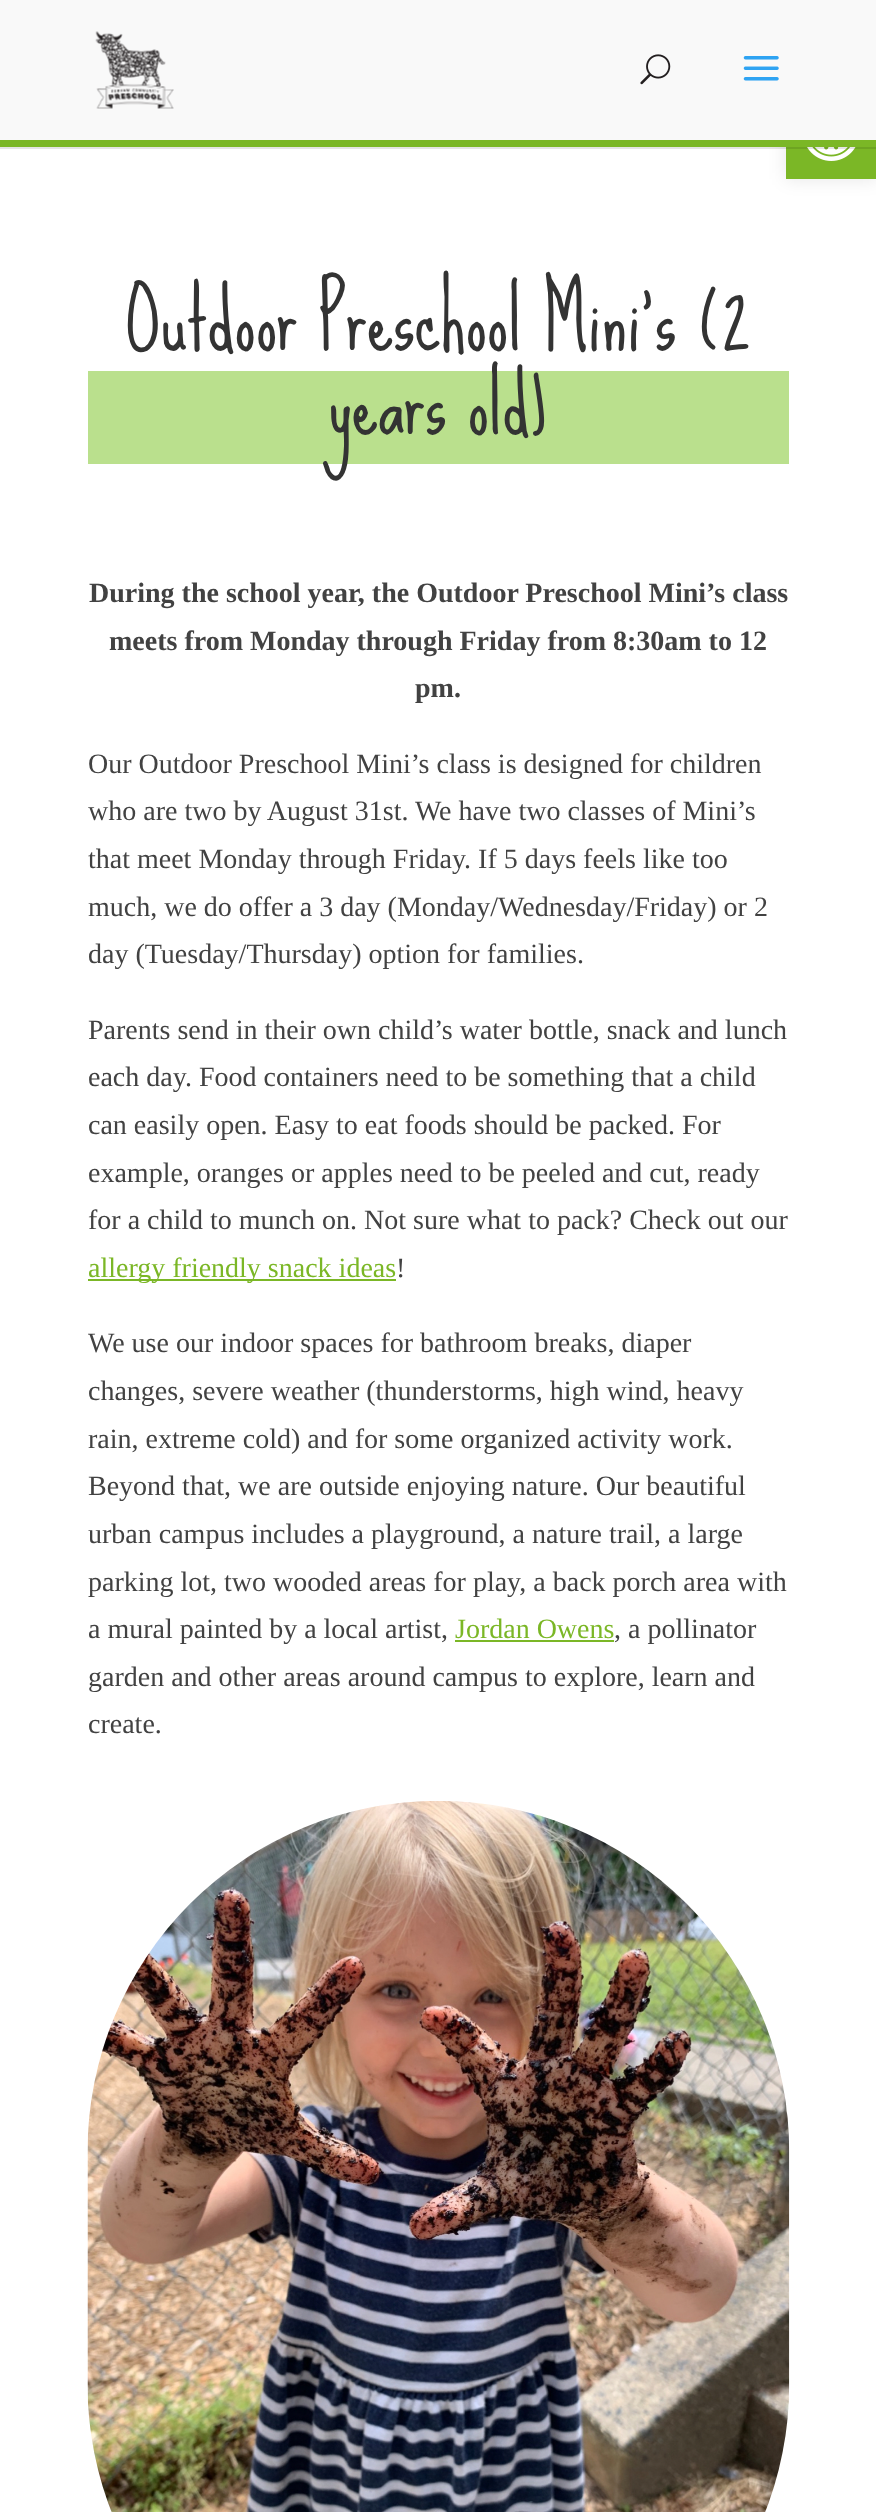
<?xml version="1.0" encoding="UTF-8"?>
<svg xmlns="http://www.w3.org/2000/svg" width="876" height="2512">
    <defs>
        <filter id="blur1" x="-50%" y="-200%" width="200%" height="500%"><feGaussianBlur stdDeviation="9"/></filter>
    </defs>
    <rect width="100%" height="100%" fill="#FFFFFF"/>
    <rect x="786" y="88" width="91" height="91" fill="#000000" fill-opacity="0.1" filter="url(#blur1)"/>
    <rect x="786" y="147" width="90" height="32" fill="#7BB726"/>
    <image x="807" y="147" width="49" height="14" href="img_01.png"/>
    <path d="M 0 147 V 149 H 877 V 2 V 147 Z" fill="#000000" fill-opacity="0.1"/>
    <rect x="0" y="0" width="876" height="140" fill="#F9F9F9"/>
    <rect x="0" y="140" width="876" height="7" fill="#7BB726"/>
    <image x="95" y="31" width="79" height="78" href="img_02.png"/>
    <image x="640" y="54" width="31" height="31" href="img_03.png"/>
    <image x="743" y="56" width="36" height="25" href="img_04.png"/>
    <rect x="88" y="371" width="701" height="93" fill="#BAE08D"/>
    <text x="126" y="350" font-family="Sue Ellen Francisco" font-size="84" fill="#333333">Outdoor Preschool Mini’s (2</text>
    <text x="330" y="434" font-family="Sue Ellen Francisco" font-size="84" fill="#333333">years old)</text>
    <text x="89" y="602" font-family="Liberation Serif" font-size="28" font-weight="700" fill="#424242">During the school year, the Outdoor Preschool Mini’s class</text>
    <text x="109" y="650" font-family="Liberation Serif" font-size="28" font-weight="700" fill="#424242">meets from Monday through Friday from 8:30am to 12</text>
    <text x="415" y="697" font-family="Liberation Serif" font-size="28" font-weight="700" fill="#424242">pm.</text>
    <text font-family="Liberation Serif" font-size="28" fill="#424242">
        <tspan x="88" y="773">Our Outdoor Preschool Mini’s class is designed for children</tspan>
        <tspan x="88" y="820">who are two by August 31st. We have two classes of Mini’s</tspan>
        <tspan x="88" y="868">that meet Monday through Friday. If 5 days feels like too</tspan>
        <tspan x="88" y="916">much, we do offer a 3 day (Monday/Wednesday/Friday) or 2</tspan>
        <tspan x="88" y="963">day (Tuesday/Thursday) option for families.</tspan>
    </text>
    <text font-family="Liberation Serif" font-size="28" fill="#424242">
        <tspan x="88" y="1039">Parents send in their own child’s water bottle, snack and lunch</tspan>
        <tspan x="88" y="1086">each day. Food containers need to be something that a child</tspan>
        <tspan x="88" y="1134">can easily open. Easy to eat foods should be packed. For</tspan>
        <tspan x="88" y="1182">example, oranges or apples need to be peeled and cut, ready</tspan>
        <tspan x="88" y="1229">for a child to munch on. Not sure what to pack? Check out our</tspan>
    </text>
    <rect x="88" y="1279" width="308" height="2" fill="#7BB726"/>
    <text x="88" y="1277" font-family="Liberation Serif" font-size="28" fill="#7BB726">allergy friendly snack ideas</text>
    <text x="396" y="1277" font-family="Liberation Serif" font-size="28" fill="#424242">!</text>
    <text font-family="Liberation Serif" font-size="28" fill="#424242">
        <tspan x="88" y="1352">We use our indoor spaces for bathroom breaks, diaper</tspan>
        <tspan x="88" y="1400">changes, severe weather (thunderstorms, high wind, heavy</tspan>
        <tspan x="88" y="1448">rain, extreme cold) and for some organized activity work.</tspan>
        <tspan x="88" y="1495">Beyond that, we are outside enjoying nature. Our beautiful</tspan>
        <tspan x="88" y="1543">urban campus includes a playground, a nature trail, a large</tspan>
        <tspan x="88" y="1591">parking lot, two wooded areas for play, a back porch area with</tspan>
        <tspan x="88" y="1638">a mural painted by a local artist,</tspan>
    </text>
    <text x="455" y="1638" font-family="Liberation Serif" font-size="28" fill="#7BB726">Jordan Owens</text>
    <rect x="455" y="1640" width="159" height="2" fill="#7BB726"/>
    <text x="614" y="1638" font-family="Liberation Serif" font-size="28" fill="#424242">, a pollinator</text>
    <text font-family="Liberation Serif" font-size="28" fill="#424242">
        <tspan x="88" y="1686">garden and other areas around campus to explore, learn and</tspan>
        <tspan x="88" y="1733">create.</tspan>
    </text>
    <image x="87" y="1801" width="703" height="711" href="img_05.png"/>
</svg>
